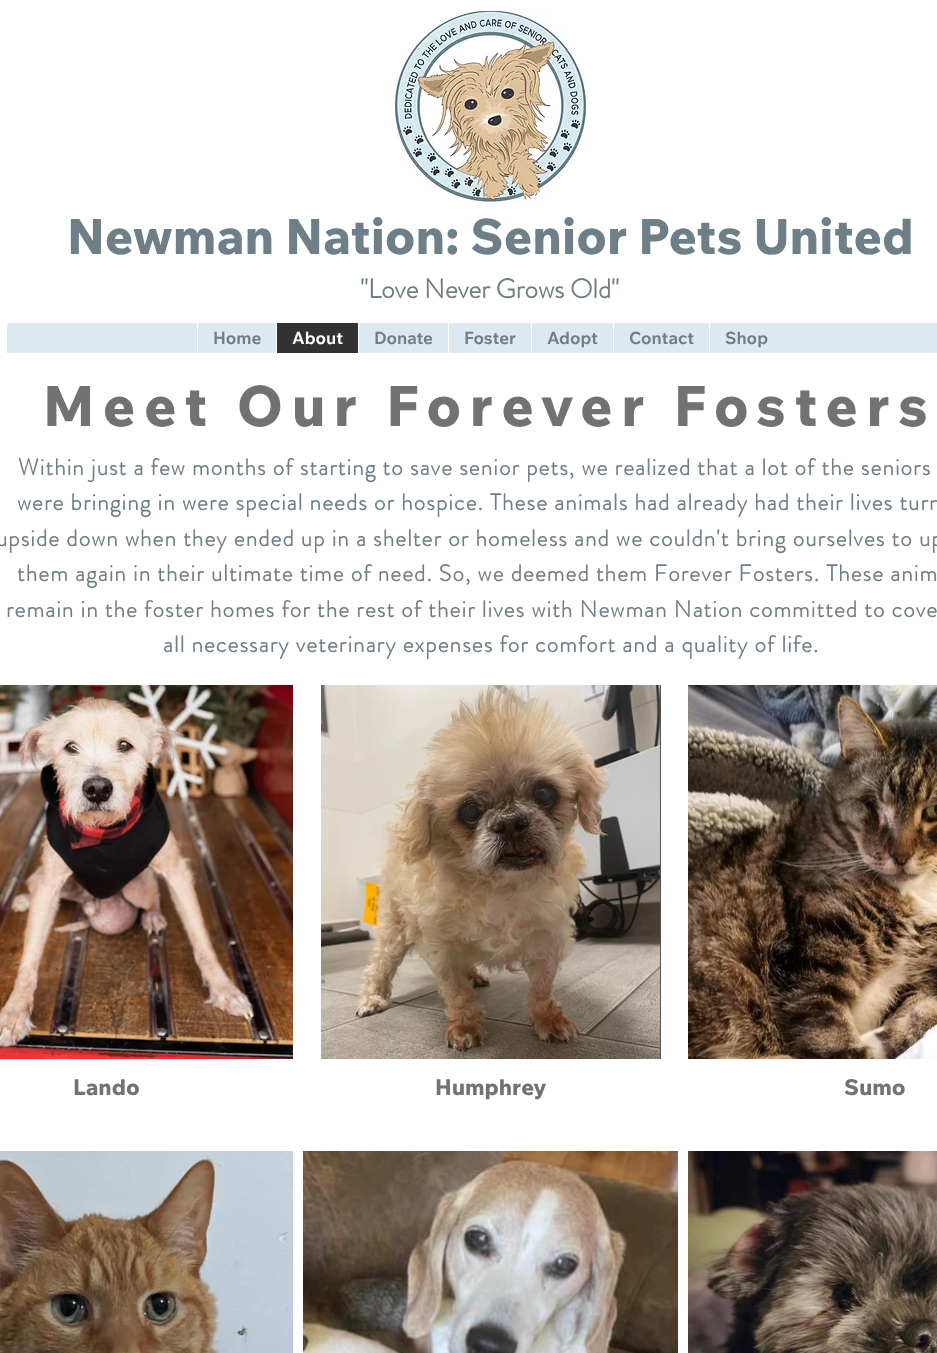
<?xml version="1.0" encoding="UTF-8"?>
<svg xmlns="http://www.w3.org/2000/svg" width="937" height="1353">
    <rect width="100%" height="100%" fill="#FFFFFF"/>
    <image x="392" y="11" width="195" height="193" href="img_01.png"/>
    <text x="67" y="254" font-family="Wix Madefor Text" font-size="49" font-weight="800" fill="#6F7F87">Newman Nation: Senior Pets United</text>
    <text x="360" y="298" font-family="'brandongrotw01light'" font-size="27" font-weight="700" fill="#6F7F87">"Love Never Grows Old"</text>
    <rect x="7" y="323" width="930" height="30" fill="#DCE9F0"/>
    <rect x="197" y="323" width="1" height="30" fill="#FFFFFF"/>
    <text x="213" y="344" font-family="Wix Madefor Text" font-size="17" font-weight="700" fill="#6F7F87">Home</text>
    <rect x="277" y="323" width="81" height="30" fill="#323232"/>
    <rect x="276" y="323" width="1" height="30" fill="#FFFFFF"/>
    <text x="292" y="344" font-family="Wix Madefor Text" font-size="17" font-weight="700" fill="#FFFFFF">About</text>
    <rect x="358" y="323" width="1" height="30" fill="#FFFFFF"/>
    <text x="374" y="344" font-family="Wix Madefor Text" font-size="17" font-weight="700" fill="#6F7F87">Donate</text>
    <rect x="448" y="323" width="1" height="30" fill="#FFFFFF"/>
    <text x="464" y="344" font-family="Wix Madefor Text" font-size="17" font-weight="700" fill="#6F7F87">Foster</text>
    <rect x="531" y="323" width="1" height="30" fill="#FFFFFF"/>
    <text x="547" y="344" font-family="Wix Madefor Text" font-size="17" font-weight="700" fill="#6F7F87">Adopt</text>
    <rect x="613" y="323" width="1" height="30" fill="#FFFFFF"/>
    <text x="629" y="344" font-family="Wix Madefor Text" font-size="17" font-weight="700" fill="#6F7F87">Contact</text>
    <rect x="709" y="323" width="1" height="30" fill="#FFFFFF"/>
    <text x="725" y="344" font-family="Wix Madefor Text" font-size="17" font-weight="700" fill="#6F7F87">Shop</text>
    <text x="43" y="426" font-family="Wix Madefor Text" font-size="56" font-weight="800" letter-spacing="8.4" fill="#727272">Meet Our Forever Fosters</text>
    <text x="18" y="475" font-family="'brandongrotw01light'" font-size="23" font-weight="700" letter-spacing="1.15" fill="#6F7F87">Within just a few months of starting to save senior pets, we realized that a lot of the seniors</text>
    <text x="17" y="510" font-family="'brandongrotw01light'" font-size="23" font-weight="700" letter-spacing="1.15" fill="#6F7F87">were bringing in were special needs or hospice. These animals had already had their lives turn</text>
    <text x="-4" y="546" font-family="'brandongrotw01light'" font-size="23" font-weight="700" letter-spacing="1.15" fill="#6F7F87">upside down when they ended up in a shelter or homeless and we couldn't bring ourselves to up</text>
    <text x="17" y="581" font-family="'brandongrotw01light'" font-size="23" font-weight="700" letter-spacing="1.15" fill="#6F7F87">them again in their ultimate time of need. So, we deemed them Forever Fosters. These anim</text>
    <text x="6" y="617" font-family="'brandongrotw01light'" font-size="23" font-weight="700" letter-spacing="1.15" fill="#6F7F87">remain in the foster homes for the rest of their lives with Newman Nation committed to cove</text>
    <text x="163" y="652" font-family="'brandongrotw01light'" font-size="23" font-weight="700" letter-spacing="1.15" fill="#6F7F87">all necessary veterinary expenses for comfort and a quality of life.</text>
    <image x="0" y="685" width="293" height="374" href="img_02.png"/>
    <text x="73" y="1095" font-family="Wix Madefor Text" font-size="22" font-weight="800" fill="#727272">Lando</text>
    <rect x="660" y="685" width="1" height="374" fill="#555555"/>
    <image x="321" y="685" width="339" height="374" href="img_03.png"/>
    <text x="435" y="1095" font-family="Wix Madefor Text" font-size="22" font-weight="800" fill="#727272">Humphrey</text>
    <image x="688" y="685" width="249" height="374" href="img_04.png"/>
    <text x="844" y="1095" font-family="Wix Madefor Text" font-size="22" font-weight="800" fill="#727272">Sumo</text>
    <image x="0" y="1151" width="293" height="202" href="img_05.png"/>
    <image x="303" y="1151" width="375" height="202" href="img_06.png"/>
    <image x="688" y="1151" width="249" height="202" href="img_07.png"/>
</svg>
